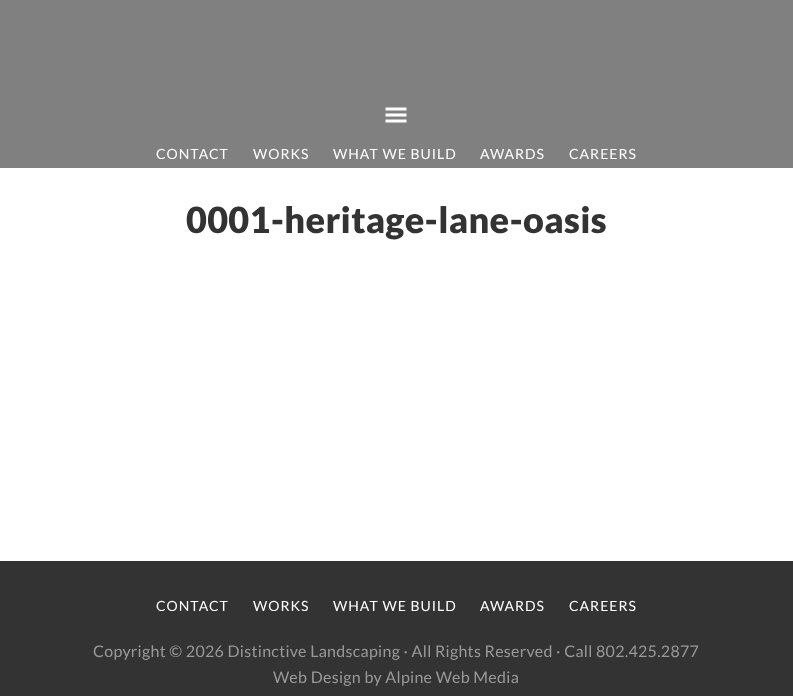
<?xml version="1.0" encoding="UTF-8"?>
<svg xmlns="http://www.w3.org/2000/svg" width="793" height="696">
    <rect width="100%" height="100%" fill="#FFFFFF"/>
    <rect x="0" y="0" width="793" height="168" fill="#808080"/>
    <image x="385" y="107" width="22" height="16" href="img_01.png"/>
    <text x="156" y="159" font-family="Lato" font-size="14" letter-spacing="1" fill="#FFFFFF">CONTACT</text>
    <text x="253" y="159" font-family="Lato" font-size="14" letter-spacing="1" fill="#FFFFFF">WORKS</text>
    <text x="333" y="159" font-family="Lato" font-size="14" letter-spacing="1" fill="#FFFFFF">WHAT WE BUILD</text>
    <text x="480" y="159" font-family="Lato" font-size="14" letter-spacing="1" fill="#FFFFFF">AWARDS</text>
    <text x="569" y="159" font-family="Lato" font-size="14" letter-spacing="1" fill="#FFFFFF">CAREERS</text>
    <text x="186" y="233" font-family="Lato" font-size="36" font-weight="900" letter-spacing="0.3" fill="#333333">0001-heritage-lane-oasis</text>
    <rect x="0" y="561" width="793" height="135" fill="#333333"/>
    <text x="156" y="611" font-family="Lato" font-size="14" letter-spacing="1" fill="#FFFFFF">CONTACT</text>
    <text x="253" y="611" font-family="Lato" font-size="14" letter-spacing="1" fill="#FFFFFF">WORKS</text>
    <text x="333" y="611" font-family="Lato" font-size="14" letter-spacing="1" fill="#FFFFFF">WHAT WE BUILD</text>
    <text x="480" y="611" font-family="Lato" font-size="14" letter-spacing="1" fill="#FFFFFF">AWARDS</text>
    <text x="569" y="611" font-family="Lato" font-size="14" letter-spacing="1" fill="#FFFFFF">CAREERS</text>
    <text x="93" y="657" font-family="Lato" font-size="16" letter-spacing="0.3" fill="#999999">Copyright © 2026 Distinctive Landscaping · All Rights Reserved · Call 802.425.2877</text>
    <text x="273" y="683" font-family="Lato" font-size="16" letter-spacing="0.3" fill="#999999">Web Design by Alpine Web Media</text>
</svg>
